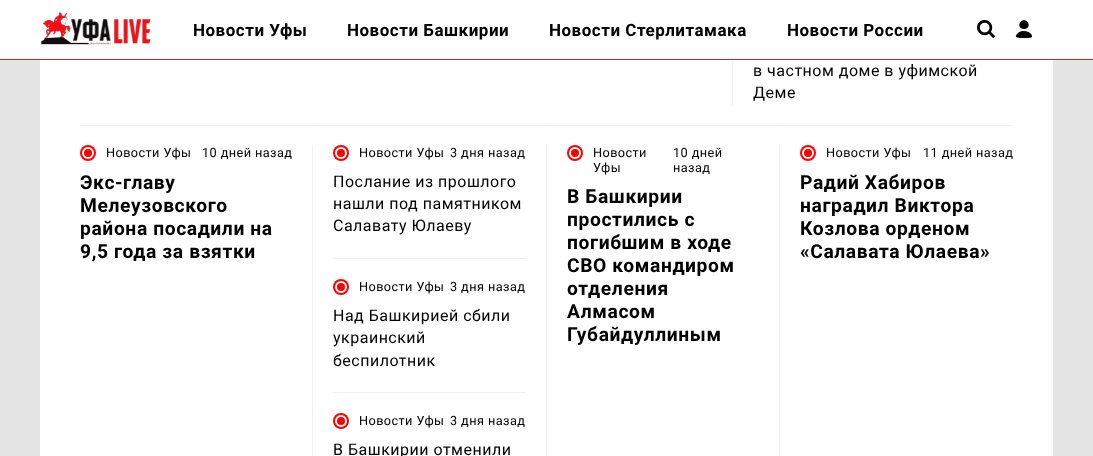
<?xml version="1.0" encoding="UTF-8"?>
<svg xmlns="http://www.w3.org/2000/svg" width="1093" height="456">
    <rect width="100%" height="100%" fill="#E5E5E5"/>
    <rect x="0" y="0" width="1093" height="59" fill="#FFFFFF"/>
    <rect x="0" y="59" width="1093" height="1" fill="#C1272D"/>
    <image x="41" y="12" width="110" height="33" href="img_01.png"/>
    <text x="193" y="36" font-family="Roboto" font-size="17" font-weight="700" letter-spacing="0.5" fill="#000000">Новости Уфы</text>
    <text x="347" y="36" font-family="Roboto" font-size="17" font-weight="700" letter-spacing="0.5" fill="#000000">Новости Башкирии</text>
    <text x="549" y="36" font-family="Roboto" font-size="17" font-weight="700" letter-spacing="0.5" fill="#000000">Новости Стерлитамака</text>
    <text x="787" y="36" font-family="Roboto" font-size="17" font-weight="700" letter-spacing="0.5" fill="#000000">Новости России</text>
    <image x="977" y="20" width="18" height="18" href="img_02.png"/>
    <image x="1015" y="20" width="17" height="18" href="img_03.png"/>
    <rect x="40" y="60" width="1013" height="396" fill="#FFFFFF"/>
    <rect x="732" y="60" width="1" height="45" fill="#F1F1F1"/>
    <text font-family="Roboto" font-size="16" letter-spacing="0.5" fill="#000000">
        <tspan x="753" y="76">в частном доме в уфимской</tspan>
        <tspan x="753" y="98">Деме</tspan>
    </text>
    <rect x="312" y="145" width="1" height="311" fill="#F1F1F1"/>
    <rect x="80" y="125" width="232" height="1" fill="#F1F1F1"/>
    <circle cx="88" cy="153" r="8" fill="#FF0000"/>
    <circle cx="88" cy="153" r="5" fill="none" stroke="#FFFFFF" stroke-width="2"/>
    <text x="106" y="157" font-family="Roboto" font-size="12.75" letter-spacing="0.4" fill="#000000">Новости Уфы</text>
    <text x="202" y="157" font-family="Roboto" font-size="12.75" letter-spacing="0.4" fill="#000000">10 дней назад</text>
    <text font-family="Roboto" font-size="19.25" font-weight="700" letter-spacing="0.6" fill="#000000">
        <tspan x="80" y="189">Экс-главу</tspan>
        <tspan x="80" y="212">Мелеузовского</tspan>
        <tspan x="80" y="235">района посадили на</tspan>
        <tspan x="80" y="258">9,5 года за взятки</tspan>
    </text>
    <rect x="546" y="145" width="1" height="311" fill="#F1F1F1"/>
    <rect x="313" y="125" width="233" height="1" fill="#F1F1F1"/>
    <rect x="333" y="258" width="193" height="1" fill="#F1F1F1"/>
    <circle cx="341" cy="153" r="8" fill="#FF0000"/>
    <circle cx="341" cy="153" r="5" fill="none" stroke="#FFFFFF" stroke-width="2"/>
    <text x="359" y="157" font-family="Roboto" font-size="12.75" letter-spacing="0.4" fill="#000000">Новости Уфы</text>
    <text x="450" y="157" font-family="Roboto" font-size="12.75" letter-spacing="0.4" fill="#000000">3 дня назад</text>
    <text font-family="Roboto" font-size="16" letter-spacing="0.5" fill="#000000">
        <tspan x="333" y="187">Послание из прошлого</tspan>
        <tspan x="333" y="209">нашли под памятником</tspan>
        <tspan x="333" y="231">Салавату Юлаеву</tspan>
    </text>
    <rect x="333" y="392" width="193" height="1" fill="#F1F1F1"/>
    <circle cx="341" cy="287" r="8" fill="#FF0000"/>
    <circle cx="341" cy="287" r="5" fill="none" stroke="#FFFFFF" stroke-width="2"/>
    <text x="359" y="291" font-family="Roboto" font-size="12.75" letter-spacing="0.4" fill="#000000">Новости Уфы</text>
    <text x="450" y="291" font-family="Roboto" font-size="12.75" letter-spacing="0.4" fill="#000000">3 дня назад</text>
    <text font-family="Roboto" font-size="16" letter-spacing="0.5" fill="#000000">
        <tspan x="333" y="321">Над Башкирией сбили</tspan>
        <tspan x="333" y="343">украинский</tspan>
        <tspan x="333" y="366">беспилотник</tspan>
    </text>
    <circle cx="341" cy="421" r="8" fill="#FF0000"/>
    <circle cx="341" cy="421" r="5" fill="none" stroke="#FFFFFF" stroke-width="2"/>
    <text x="359" y="425" font-family="Roboto" font-size="12.75" letter-spacing="0.4" fill="#000000">Новости Уфы</text>
    <text x="450" y="425" font-family="Roboto" font-size="12.75" letter-spacing="0.4" fill="#000000">3 дня назад</text>
    <text x="333" y="455" font-family="Roboto" font-size="16" letter-spacing="0.5" fill="#000000">В Башкирии отменили</text>
    <rect x="779" y="145" width="1" height="311" fill="#F1F1F1"/>
    <rect x="547" y="125" width="232" height="1" fill="#F1F1F1"/>
    <circle cx="575" cy="153" r="8" fill="#FF0000"/>
    <circle cx="575" cy="153" r="5" fill="none" stroke="#FFFFFF" stroke-width="2"/>
    <text font-family="Roboto" font-size="12.75" letter-spacing="0.4" fill="#000000">
        <tspan x="593" y="157">Новости</tspan>
        <tspan x="593" y="172">Уфы</tspan>
    </text>
    <text font-family="Roboto" font-size="12.75" letter-spacing="0.4" fill="#000000">
        <tspan x="673" y="157">10 дней</tspan>
        <tspan x="673" y="172">назад</tspan>
    </text>
    <text font-family="Roboto" font-size="19.25" font-weight="700" letter-spacing="0.6" fill="#000000">
        <tspan x="567" y="203">В Башкирии</tspan>
        <tspan x="567" y="226">простились с</tspan>
        <tspan x="567" y="249">погибшим в ходе</tspan>
        <tspan x="567" y="272">СВО командиром</tspan>
        <tspan x="567" y="295">отделения</tspan>
        <tspan x="567" y="318">Алмасом</tspan>
        <tspan x="567" y="341">Губайдуллиным</tspan>
    </text>
    <rect x="780" y="125" width="233" height="1" fill="#F1F1F1"/>
    <circle cx="808" cy="153" r="8" fill="#FF0000"/>
    <circle cx="808" cy="153" r="5" fill="none" stroke="#FFFFFF" stroke-width="2"/>
    <text x="826" y="157" font-family="Roboto" font-size="12.75" letter-spacing="0.4" fill="#000000">Новости Уфы</text>
    <text x="923" y="157" font-family="Roboto" font-size="12.75" letter-spacing="0.4" fill="#000000">11 дней назад</text>
    <text font-family="Roboto" font-size="19.25" font-weight="700" letter-spacing="0.6" fill="#000000">
        <tspan x="800" y="189">Радий Хабиров</tspan>
        <tspan x="800" y="212">наградил Виктора</tspan>
        <tspan x="800" y="235">Козлова орденом</tspan>
        <tspan x="800" y="258">«Салавата Юлаева»</tspan>
    </text>
</svg>
